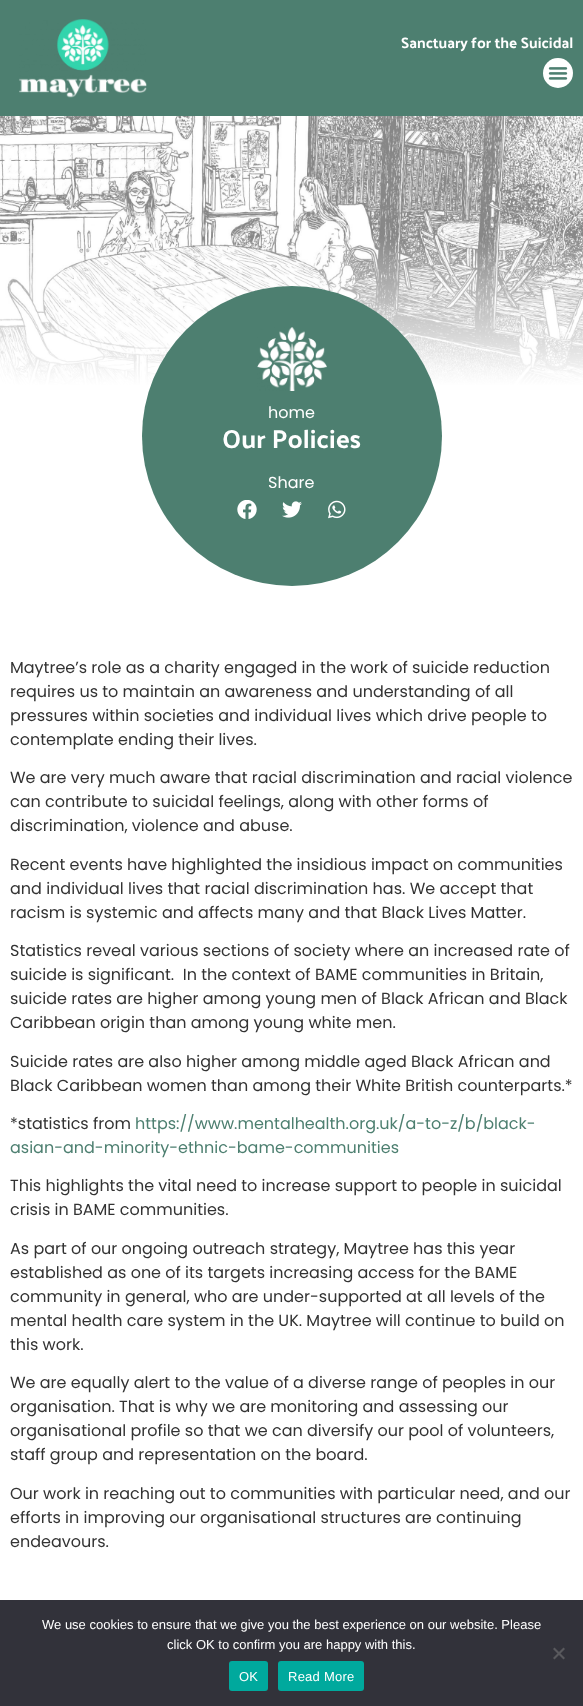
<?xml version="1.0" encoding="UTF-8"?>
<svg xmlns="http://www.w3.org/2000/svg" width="583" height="1706">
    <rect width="100%" height="100%" fill="#FFFFFF"/>
    <rect x="0" y="0" width="583" height="116" fill="#4D7F70"/>
    <image x="19" y="19" width="128" height="79" href="img_01.png"/>
    <text x="401" y="48" font-family="Palanquin Dark" font-size="15" fill="#FFFFFF">Sanctuary for the Suicidal</text>
    <circle cx="558" cy="73" r="15" fill="#FFFFFF"/>
    <image x="548" y="67" width="20" height="13" href="img_02.png"/>
    <image x="0" y="116" width="583" height="300" href="img_03.png"/>
    <circle cx="292" cy="436" r="150" fill="#4D7F70"/>
    <image x="257" y="327" width="70" height="64" href="img_04.png"/>
    <text x="268" y="418" font-family="Poppins" font-size="16" fill="#FFFFFF">home</text>
    <text x="222" y="448" font-family="Palanquin Dark" font-size="26" fill="#FFFFFF">Our Policies</text>
    <text x="268" y="488" font-family="Poppins" font-size="16" fill="#FFFFFF">Share</text>
    <image x="237" y="500" width="20" height="19" href="img_05.png"/>
    <image x="282" y="501" width="20" height="17" href="img_06.png"/>
    <image x="328" y="500" width="18" height="19" href="img_07.png"/>
    <text font-family="Poppins" font-size="16" fill="#333333">
        <tspan x="10" y="673">Maytree’s role as a charity engaged in the work of suicide reduction</tspan>
        <tspan x="10" y="697">requires us to maintain an awareness and understanding of all</tspan>
        <tspan x="10" y="721">pressures within societies and individual lives which drive people to</tspan>
        <tspan x="10" y="745">contemplate ending their lives.</tspan>
    </text>
    <text font-family="Poppins" font-size="16" fill="#333333">
        <tspan x="10" y="783">We are very much aware that racial discrimination and racial violence</tspan>
        <tspan x="10" y="807">can contribute to suicidal feelings, along with other forms of</tspan>
        <tspan x="10" y="831">discrimination, violence and abuse.</tspan>
    </text>
    <text font-family="Poppins" font-size="16" fill="#333333">
        <tspan x="10" y="870">Recent events have highlighted the insidious impact on communities</tspan>
        <tspan x="10" y="894">and individual lives that racial discrimination has. We accept that</tspan>
        <tspan x="10" y="918">racism is systemic and affects many and that Black Lives Matter.</tspan>
    </text>
    <text font-family="Poppins" font-size="16" fill="#333333" xml:space="preserve"><tspan x="10" y="956">Statistics reveal various sections of society where an increased rate of</tspan><tspan x="10" y="980">suicide is significant.  In the context of BAME communities in Britain,</tspan><tspan x="10" y="1004">suicide rates are higher among young men of Black African and Black</tspan><tspan x="10" y="1028">Caribbean origin than among young white men.</tspan></text>
    <text font-family="Poppins" font-size="16" fill="#333333">
        <tspan x="10" y="1067">Suicide rates are also higher among middle aged Black African and</tspan>
        <tspan x="10" y="1091">Black Caribbean women than among their White British counterparts.*</tspan>
    </text>
    <text x="10" y="1129" font-family="Poppins" font-size="16" fill="#333333">*statistics from</text>
    <text x="135" y="1129" font-family="Poppins" font-size="16" fill="#4D7F70">https://www.mentalhealth.org.uk/a-to-z/b/black-</text>
    <text x="10" y="1153" font-family="Poppins" font-size="16" fill="#4D7F70">asian-and-minority-ethnic-bame-communities</text>
    <text font-family="Poppins" font-size="16" fill="#333333">
        <tspan x="10" y="1191">This highlights the vital need to increase support to people in suicidal</tspan>
        <tspan x="10" y="1215">crisis in BAME communities.</tspan>
    </text>
    <text font-family="Poppins" font-size="16" fill="#333333">
        <tspan x="10" y="1254">As part of our ongoing outreach strategy, Maytree has this year</tspan>
        <tspan x="10" y="1278">established as one of its targets increasing access for the BAME</tspan>
        <tspan x="10" y="1302">community in general, who are under-supported at all levels of the</tspan>
        <tspan x="10" y="1326">mental health care system in the UK. Maytree will continue to build on</tspan>
        <tspan x="10" y="1350">this work.</tspan>
    </text>
    <text font-family="Poppins" font-size="16" fill="#333333">
        <tspan x="10" y="1388">We are equally alert to the value of a diverse range of peoples in our</tspan>
        <tspan x="10" y="1412">organisation. That is why we are monitoring and assessing our</tspan>
        <tspan x="10" y="1436">organisational profile so that we can diversify our pool of volunteers,</tspan>
        <tspan x="10" y="1460">staff group and representation on the board.</tspan>
    </text>
    <text font-family="Poppins" font-size="16" fill="#333333">
        <tspan x="10" y="1499">Our work in reaching out to communities with particular need, and our</tspan>
        <tspan x="10" y="1523">efforts in improving our organisational structures are continuing</tspan>
        <tspan x="10" y="1547">endeavours.</tspan>
    </text>
    <rect x="0" y="1600" width="583" height="106" fill="#32323A"/>
    <text x="42" y="1629" font-family="Liberation Sans" font-size="13" fill="#FFFFFF">We use cookies to ensure that we give you the best experience on our website. Please</text>
    <text x="167" y="1649" font-family="Liberation Sans" font-size="13" fill="#FFFFFF">click OK to confirm you are happy with this.</text>
    <path d="M 563.5 1647.5 L 565 1649 L 554.5 1659.5 L 553 1658 Z" fill="#59595D"/>
    <path d="M 553 1649 L 554.5 1647.5 L 565 1658 L 563.5 1659.5 Z" fill="#59595D"/>
    <rect x="229" y="1661" width="39" height="30" rx="3" fill="#00A99D"/>
    <text x="239" y="1681" font-family="Liberation Sans" font-size="13" letter-spacing="0.25" fill="#FFFFFF">OK</text>
    <rect x="278" y="1661" width="86" height="30" rx="3" fill="#00A99D"/>
    <text x="288" y="1681" font-family="Liberation Sans" font-size="13" letter-spacing="0.25" fill="#FFFFFF">Read More</text>
</svg>
